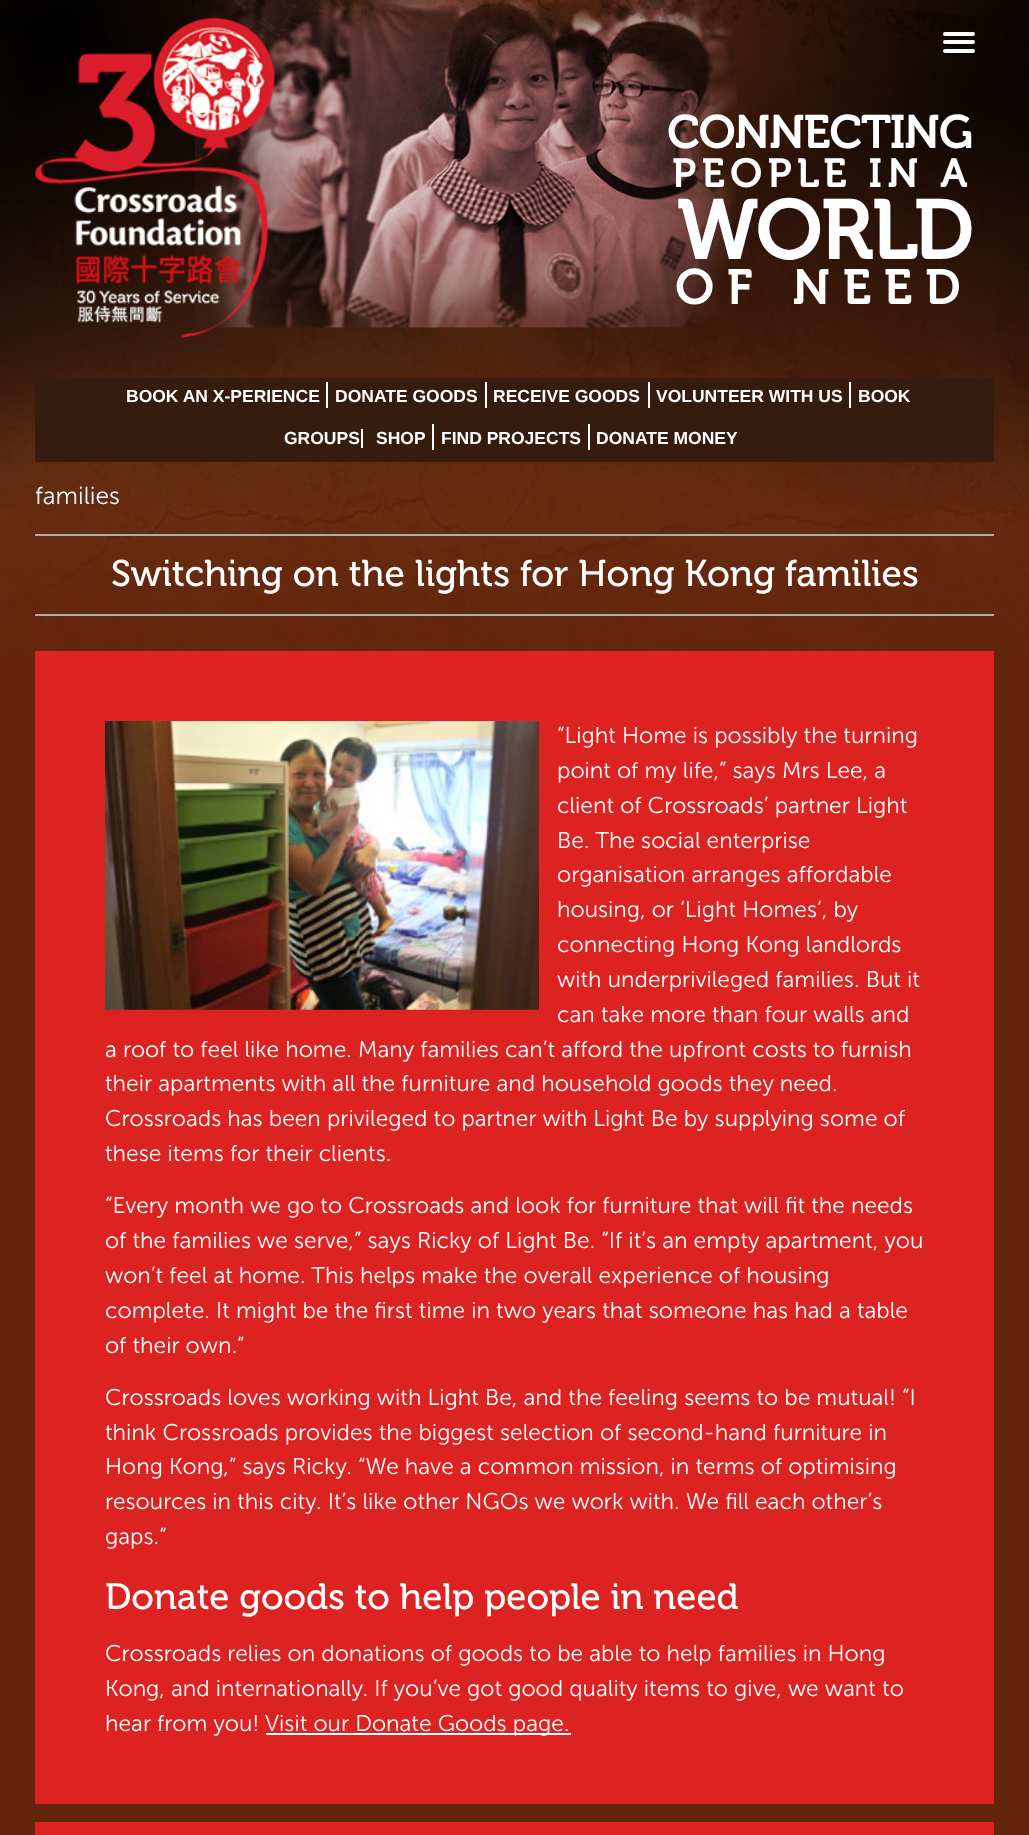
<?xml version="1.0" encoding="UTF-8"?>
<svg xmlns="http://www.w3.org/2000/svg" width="1029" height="1835">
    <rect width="100%" height="100%" fill="#63250C"/>
    <image x="0" y="0" width="1029" height="655" href="img_01.png"/>
    <path d="M 943.5 34 L 943 35.5 C 943.5 38 948.5 37 949.5 37 H 968.5 C 969.5 37 974.5 38 975 35.5 L 974.5 34 C 974.5 34.5 974 35 973 35 H 945 C 944 35 943.5 34.5 943.5 34 Z" fill="#000000" fill-opacity="0.25"/>
    <rect x="943" y="32" width="32" height="4" rx="2" fill="#FFFFFF"/>
    <path d="M 943.5 43 L 943 44.5 C 943.5 47 948.5 46 949.5 46 H 968.5 C 969.5 46 974.5 47 975 44.5 L 974.5 43 C 974.5 43.5 973.5 44 973 44 H 945 C 944.5 44 943.5 43.5 943.5 43 Z" fill="#000000" fill-opacity="0.25"/>
    <rect x="943" y="40" width="32" height="4" rx="2" fill="#FFFFFF"/>
    <path d="M 943.5 51.5 C 942.5 53 943 54.5 944.5 55 H 973.5 C 975 54.5 975.5 53 974.5 51.5 L 973 52.5 H 945 Z" fill="#000000" fill-opacity="0.25"/>
    <rect x="943" y="49" width="32" height="4" rx="2" fill="#FFFFFF"/>
    <image x="35" y="17" width="240" height="322" href="img_02.png"/>
    <text x="667" y="148" font-family="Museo" font-size="45.25" font-weight="700" fill="#FFFFFF">CONNECTING</text>
    <text x="672" y="187" font-family="Museo" font-size="39.25" font-weight="700" letter-spacing="6.25" fill="#FFFFFF">PEOPLE IN A</text>
    <text x="677" y="259" font-family="Museo" font-size="82" font-weight="700" fill="#FFFFFF">WORLD</text>
    <text x="675" y="304" font-family="Museo" font-size="47.75" font-weight="700" letter-spacing="14" fill="#FFFFFF">OF NEED</text>
    <rect x="35" y="378" width="959" height="84" fill="#361B0F"/>
    <text x="126" y="402" font-family="Liberation Sans" font-size="17.5" font-weight="700" fill="#FFFFFF">BOOK AN X-PERIENCE</text>
    <rect x="326" y="382" width="2" height="26" fill="#FFFFFF"/>
    <text x="335" y="402" font-family="Liberation Sans" font-size="17.5" font-weight="700" fill="#FFFFFF">DONATE GOODS</text>
    <rect x="485" y="382" width="2" height="26" fill="#FFFFFF"/>
    <text x="493" y="402" font-family="Liberation Sans" font-size="17.5" font-weight="700" fill="#FFFFFF">RECEIVE GOODS</text>
    <rect x="648" y="382" width="2" height="26" fill="#FFFFFF"/>
    <text x="656" y="402" font-family="Liberation Sans" font-size="17.5" font-weight="700" fill="#FFFFFF">VOLUNTEER WITH US</text>
    <rect x="849" y="382" width="2" height="26" fill="#FFFFFF"/>
    <text x="858" y="402" font-family="Liberation Sans" font-size="17.5" font-weight="700" fill="#FFFFFF">BOOK</text>
    <text x="284" y="444" font-family="Liberation Sans" font-size="17.5" font-weight="700" fill="#FFFFFF">GROUPS</text>
    <rect x="361" y="429" width="2" height="19" fill="#FFFFFF"/>
    <text x="376" y="444" font-family="Liberation Sans" font-size="17.5" font-weight="700" fill="#FFFFFF">SHOP</text>
    <rect x="432" y="424" width="2" height="26" fill="#FFFFFF"/>
    <text x="441" y="444" font-family="Liberation Sans" font-size="17.5" font-weight="700" fill="#FFFFFF">FIND PROJECTS</text>
    <rect x="588" y="424" width="2" height="26" fill="#FFFFFF"/>
    <text x="596" y="444" font-family="Liberation Sans" font-size="17.5" font-weight="700" fill="#FFFFFF">DONATE MONEY</text>
    <text x="35" y="504" font-family="Museo Sans" font-size="24.5" font-weight="300" fill="#F2F7FA">families</text>
    <rect x="35" y="534" width="959" height="2" fill="#B1ABAB"/>
    <rect x="35" y="614" width="959" height="2" fill="#B1ABAB"/>
    <text x="111" y="586" font-family="Museo" font-size="37.1" fill="#FFFFFF">Switching on the lights for Hong Kong families</text>
    <rect x="35" y="651" width="959" height="1153" fill="#DD2222"/>
    <image x="105" y="721" width="434" height="289" href="img_03.png"/>
    <text font-family="Museo Sans" font-size="22.75" font-weight="300" fill="#FFFFFF">
        <tspan x="557" y="743">“Light Home is possibly the turning</tspan>
        <tspan x="557" y="778">point of my life,” says Mrs Lee, a</tspan>
        <tspan x="557" y="813">client of Crossroads’ partner Light</tspan>
        <tspan x="557" y="848">Be. The social enterprise</tspan>
        <tspan x="557" y="882">organisation arranges affordable</tspan>
        <tspan x="557" y="917">housing, or ‘Light Homes’, by</tspan>
        <tspan x="557" y="952">connecting Hong Kong landlords</tspan>
        <tspan x="557" y="987">with underprivileged families. But it</tspan>
        <tspan x="557" y="1022">can take more than four walls and</tspan>
    </text>
    <text font-family="Museo Sans" font-size="22.75" font-weight="300" fill="#FFFFFF">
        <tspan x="105" y="1057">a roof to feel like home. Many families can’t afford the upfront costs to furnish</tspan>
        <tspan x="105" y="1091">their apartments with all the furniture and household goods they need.</tspan>
        <tspan x="105" y="1126">Crossroads has been privileged to partner with Light Be by supplying some of</tspan>
        <tspan x="105" y="1161">these items for their clients.</tspan>
    </text>
    <text font-family="Museo Sans" font-size="22.75" font-weight="300" fill="#FFFFFF">
        <tspan x="105" y="1213">“Every month we go to Crossroads and look for furniture that will fit the needs</tspan>
        <tspan x="105" y="1248">of the families we serve,” says Ricky of Light Be. “If it’s an empty apartment, you</tspan>
        <tspan x="105" y="1283">won’t feel at home. This helps make the overall experience of housing</tspan>
        <tspan x="105" y="1318">complete. It might be the first time in two years that someone has had a table</tspan>
        <tspan x="105" y="1353">of their own.”</tspan>
    </text>
    <text font-family="Museo Sans" font-size="22.75" font-weight="300" fill="#FFFFFF">
        <tspan x="105" y="1405">Crossroads loves working with Light Be, and the feeling seems to be mutual! “I</tspan>
        <tspan x="105" y="1440">think Crossroads provides the biggest selection of second-hand furniture in</tspan>
        <tspan x="105" y="1474">Hong Kong,” says Ricky. “We have a common mission, in terms of optimising</tspan>
        <tspan x="105" y="1509">resources in this city. It’s like other NGOs we work with. We fill each other’s</tspan>
        <tspan x="105" y="1544">gaps.”</tspan>
    </text>
    <text x="105" y="1609" font-family="Museo" font-size="36.6" fill="#FFFFFF">Donate goods to help people in need</text>
    <text font-family="Museo Sans" font-size="22.75" font-weight="300" fill="#FFFFFF">
        <tspan x="105" y="1661">Crossroads relies on donations of goods to be able to help families in Hong</tspan>
        <tspan x="105" y="1696">Kong, and internationally. If you’ve got good quality items to give, we want to</tspan>
        <tspan x="105" y="1731">hear from you!</tspan>
    </text>
    <rect x="266" y="1733" width="305" height="2" fill="#FFFFFF"/>
    <text x="265" y="1731" font-family="Museo Sans" font-size="22.75" font-weight="300" fill="#FFFFFF">Visit our Donate Goods page.</text>
    <rect x="35" y="1822" width="959" height="13" fill="#DD2222"/>
</svg>
